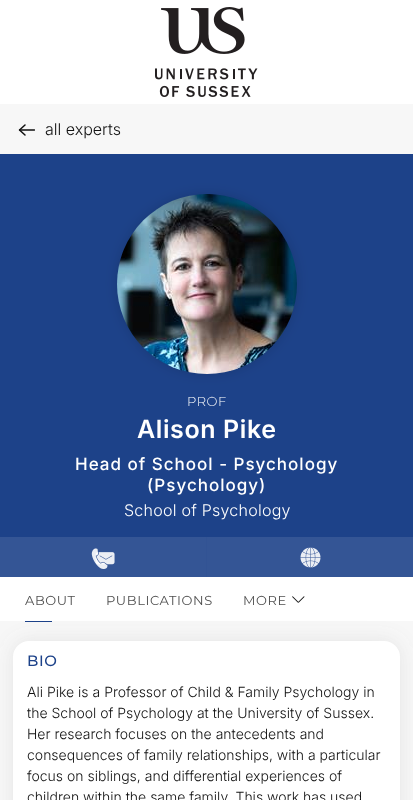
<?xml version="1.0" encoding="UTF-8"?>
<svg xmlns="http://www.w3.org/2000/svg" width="413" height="800">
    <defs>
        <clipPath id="clip1"><rect x="19" y="124" width="16" height="12"/></clipPath>
        <filter id="blur1" x="-50%" y="-200%" width="200%" height="500%"><feGaussianBlur stdDeviation="6"/></filter>
        <filter id="blur2" x="-50%" y="-200%" width="200%" height="500%"><feGaussianBlur stdDeviation="10"/></filter>
    </defs>
    <rect width="100%" height="100%" fill="#FFFFFF"/>
    <image x="155" y="7" width="103" height="90" href="img_01.png"/>
    <rect x="0" y="104" width="413" height="696" fill="#F7F7F7"/>
    <g clip-path="url(#clip1)">
        <path d="M 34.5 130 H 19.5" fill="none" stroke="#111111" stroke-width="1.5" stroke-linecap="round" stroke-linejoin="round"/>
    </g>
    <path d="M 25 135 L 19.5 130 L 25 125" fill="none" stroke="#111111" stroke-width="1.5" stroke-linecap="round" stroke-linejoin="round"/>
    <text x="45" y="135" font-family="Inter" font-size="16" font-weight="300" fill="#111111">all experts</text>
    <rect x="0" y="154" width="413" height="383" fill="#1D4289"/>
    <rect x="117" y="194" width="180" height="180" rx="90" fill="#000000" fill-opacity="0.15" filter="url(#blur1)"/>
    <image x="117" y="194" width="180" height="180" href="img_02.png"/>
    <text x="187" y="406" font-family="Montserrat" font-size="13" font-weight="300" letter-spacing="0.5" fill="#FFFFFF">PROF</text>
    <text x="137" y="438" font-family="Inter" font-size="25" font-weight="600" letter-spacing="0.6" fill="#FFFFFF">Alison Pike</text>
    <text x="75" y="470" font-family="Inter" font-size="17" font-weight="500" letter-spacing="1" fill="#FFFFFF">Head of School - Psychology</text>
    <text x="147" y="491" font-family="Inter" font-size="17" font-weight="500" letter-spacing="1" fill="#FFFFFF">(Psychology)</text>
    <text x="124" y="516" font-family="Inter" font-size="16" font-weight="300" letter-spacing="0.25" fill="#FFFFFF">School of Psychology</text>
    <rect x="0" y="537" width="206" height="40" fill="#345595"/>
    <image x="91" y="548" width="24" height="21" href="img_03.png"/>
    <rect x="207" y="537" width="206" height="40" fill="#345595"/>
    <rect x="206" y="537" width="1" height="40" fill="#325394"/>
    <image x="300" y="547" width="21" height="21" href="img_04.png"/>
    <rect x="0" y="577" width="413" height="44" fill="#FFFFFF"/>
    <text x="25" y="605" font-family="Montserrat" font-size="13" letter-spacing="0.6" fill="#505050">ABOUT</text>
    <rect x="13" y="641" width="387" height="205" rx="16" fill="#828282" fill-opacity="0.16" filter="url(#blur2)"/>
    <rect x="25" y="621" width="27" height="1" fill="#1D4289"/>
    <text x="106" y="605" font-family="Montserrat" font-size="13" letter-spacing="0.6" fill="#505050">PUBLICATIONS</text>
    <text x="243" y="605" font-family="Montserrat" font-size="13" letter-spacing="0.6" fill="#505050">MORE</text>
    <image x="292" y="596" width="13" height="7" href="img_05.png"/>
    <rect x="13" y="641" width="387" height="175" rx="16" fill="#FFFFFF"/>
    <text x="27" y="666" font-family="Montserrat" font-size="15" font-weight="500" letter-spacing="0.6" fill="#1D4289">BIO</text>
    <text font-family="Inter" font-size="14" font-weight="300" fill="#111111">
        <tspan x="27" y="697">Ali Pike is a Professor of Child &amp; Family Psychology in</tspan>
        <tspan x="27" y="718">the School of Psychology at the University of Sussex.</tspan>
        <tspan x="27" y="739">Her research focuses on the antecedents and</tspan>
        <tspan x="27" y="760">consequences of family relationships, with a particular</tspan>
        <tspan x="27" y="781">focus on siblings, and differential experiences of</tspan>
        <tspan x="27" y="802">children within the same family. This work has used</tspan>
    </text>
</svg>
